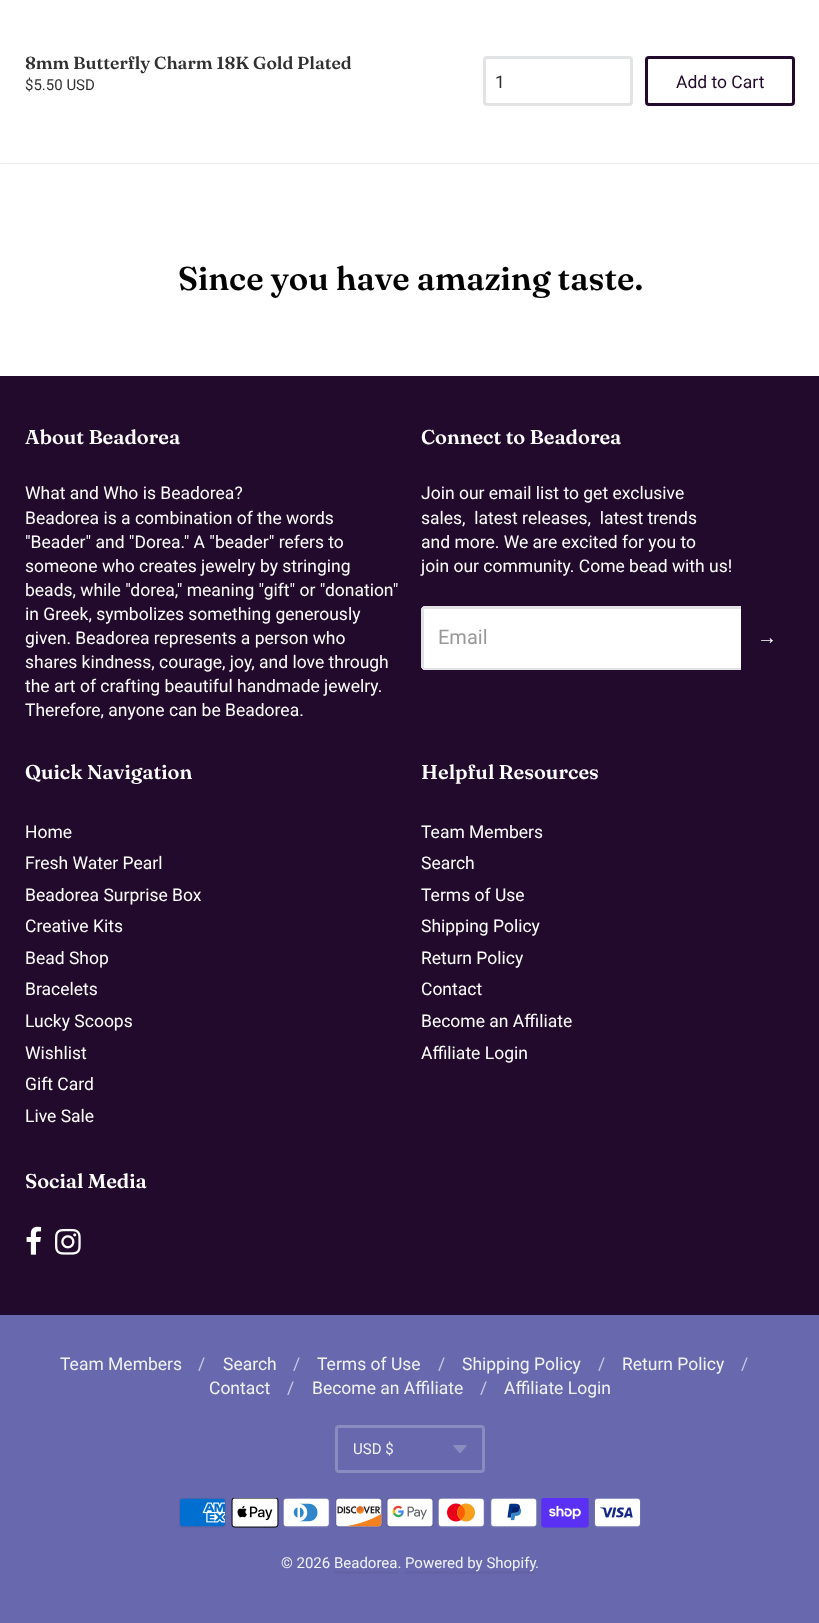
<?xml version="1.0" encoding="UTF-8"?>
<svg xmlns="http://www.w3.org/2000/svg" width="819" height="1623">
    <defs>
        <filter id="blur1" x="-50%" y="-200%" width="200%" height="500%"><feGaussianBlur stdDeviation="1"/></filter>
    </defs>
    <rect width="100%" height="100%" fill="#FFFFFF"/>
    <rect x="0" y="0" width="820" height="163" fill="#000000" fill-opacity="0.2" filter="url(#blur1)"/>
    <rect x="0" y="0" width="819" height="163" fill="#FFFFFF"/>
    <text x="25" y="69" font-family="'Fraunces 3'" font-size="17.5" font-weight="600" fill="#303030">8mm Butterfly Charm 18K Gold Plated</text>
    <text x="25" y="90" font-family="Roboto" font-size="15" fill="#303030">$5.50 USD</text>
    <rect x="484.5" y="57.5" width="147" height="47" rx="2.5" fill="none" stroke="#E1E3E4" stroke-width="3"/>
    <text x="495" y="88" font-family="Roboto" font-size="17.5" fill="#303030">1</text>
    <rect x="646.5" y="57.5" width="147" height="47" rx="2.5" fill="none" stroke="#210A2C" stroke-width="3"/>
    <text x="676" y="88" font-family="Roboto" font-size="17.5" fill="#210A2C">Add to Cart</text>
    <text x="178" y="290" font-family="'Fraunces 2'" font-size="33" font-weight="600" fill="#030303">Since you have amazing taste.</text>
    <rect x="0" y="376" width="819" height="939" fill="#210A2C"/>
    <text x="25" y="444" font-family="Fraunces" font-size="20" font-weight="600" fill="#FFFFFF">About Beadorea</text>
    <text font-family="Roboto" font-size="17.5" fill="#FFFFFF">
        <tspan x="25" y="499">What and Who is Beadorea?</tspan>
        <tspan x="25" y="524">Beadorea is a combination of the words</tspan>
        <tspan x="25" y="548">"Beader" and "Dorea." A "beader" refers to</tspan>
        <tspan x="25" y="572">someone who creates jewelry by stringing</tspan>
        <tspan x="25" y="596">beads, while "dorea," meaning "gift" or "donation"</tspan>
        <tspan x="25" y="620">in Greek, symbolizes something generously</tspan>
        <tspan x="25" y="644">given. Beadorea represents a person who</tspan>
        <tspan x="25" y="668">shares kindness, courage, joy, and love through</tspan>
        <tspan x="25" y="692">the art of crafting beautiful handmade jewelry.</tspan>
        <tspan x="25" y="716">Therefore, anyone can be Beadorea.</tspan>
    </text>
    <text x="421" y="444" font-family="Fraunces" font-size="20" font-weight="600" fill="#FFFFFF">Connect to Beadorea</text>
    <text font-family="Roboto" font-size="17.5" fill="#FFFFFF" xml:space="preserve"><tspan x="421" y="499">Join our email list to get exclusive</tspan><tspan x="421" y="524">sales,  latest releases,  latest trends</tspan><tspan x="421" y="548">and more. We are excited for you to</tspan><tspan x="421" y="572">join our community. Come bead with us!</tspan></text>
    <path d="M 425 606 H 741 V 670 H 425 C 423 670 421 668 421 666 V 610 C 421 608 423 606 425 606 Z" fill="#FFFFFF"/>
    <path d="M 425 606 H 741 V 670 H 425 C 423 670 421 668 421 666 V 610 C 421 608 423 606 425 606 Z M 425 609 H 741 V 668 H 425 C 424 668 424 667 424 666 V 610 C 424 609 424 609 425 609 Z" fill="#E1E3E4" fill-rule="evenodd"/>
    <text x="438" y="644" font-family="Roboto" font-size="20" fill="#989898">Email</text>
    <text x="757" y="644" font-family="Liberation Sans" font-size="20" fill="#FFFFFF">→</text>
    <text x="25" y="779" font-family="Fraunces" font-size="20" font-weight="600" fill="#FFFFFF">Quick Navigation</text>
    <text font-family="Roboto" font-size="17.5" fill="#FFFFFF">
        <tspan x="25" y="838">Home</tspan>
        <tspan x="25" y="869">Fresh Water Pearl</tspan>
        <tspan x="25" y="901">Beadorea Surprise Box</tspan>
        <tspan x="25" y="932">Creative Kits</tspan>
        <tspan x="25" y="964">Bead Shop</tspan>
        <tspan x="25" y="995">Bracelets</tspan>
        <tspan x="25" y="1027">Lucky Scoops</tspan>
        <tspan x="25" y="1059">Wishlist</tspan>
        <tspan x="25" y="1090">Gift Card</tspan>
        <tspan x="25" y="1122">Live Sale</tspan>
    </text>
    <text x="421" y="779" font-family="Fraunces" font-size="20" font-weight="600" fill="#FFFFFF">Helpful Resources</text>
    <text font-family="Roboto" font-size="17.5" fill="#FFFFFF">
        <tspan x="421" y="838">Team Members</tspan>
        <tspan x="421" y="869">Search</tspan>
        <tspan x="421" y="901">Terms of Use</tspan>
        <tspan x="421" y="932">Shipping Policy</tspan>
        <tspan x="421" y="964">Return Policy</tspan>
        <tspan x="421" y="995">Contact</tspan>
        <tspan x="421" y="1027">Become an Affiliate</tspan>
        <tspan x="421" y="1059">Affiliate Login</tspan>
    </text>
    <text x="25" y="1188" font-family="Fraunces" font-size="20" font-weight="600" fill="#FFFFFF">Social Media</text>
    <image x="26" y="1226" width="16" height="29" href="img_01.png"/>
    <image x="55" y="1228" width="26" height="27" href="img_02.png"/>
    <rect x="0" y="1315" width="819" height="308" fill="#6868AE"/>
    <text x="60" y="1370" font-family="Roboto" font-size="17.5" fill="#F1F2F3">Team Members</text>
    <text x="198" y="1370" font-family="Roboto" font-size="17.5" fill="#C8C9DE">/</text>
    <text x="223" y="1370" font-family="Roboto" font-size="17.5" fill="#F1F2F3">Search</text>
    <text x="293" y="1370" font-family="Roboto" font-size="17.5" fill="#C8C9DE">/</text>
    <text x="317" y="1370" font-family="Roboto" font-size="17.5" fill="#F1F2F3">Terms of Use</text>
    <text x="438" y="1370" font-family="Roboto" font-size="17.5" fill="#C8C9DE">/</text>
    <text x="462" y="1370" font-family="Roboto" font-size="17.5" fill="#F1F2F3">Shipping Policy</text>
    <text x="598" y="1370" font-family="Roboto" font-size="17.5" fill="#C8C9DE">/</text>
    <text x="622" y="1370" font-family="Roboto" font-size="17.5" fill="#F1F2F3">Return Policy</text>
    <text x="741" y="1370" font-family="Roboto" font-size="17.5" fill="#C8C9DE">/</text>
    <text x="209" y="1394" font-family="Roboto" font-size="17.5" fill="#F1F2F3">Contact</text>
    <text x="287" y="1394" font-family="Roboto" font-size="17.5" fill="#C8C9DE">/</text>
    <text x="312" y="1394" font-family="Roboto" font-size="17.5" fill="#F1F2F3">Become an Affiliate</text>
    <text x="480" y="1394" font-family="Roboto" font-size="17.5" fill="#C8C9DE">/</text>
    <text x="504" y="1394" font-family="Roboto" font-size="17.5" fill="#F1F2F3">Affiliate Login</text>
    <image x="453" y="1445" width="14" height="8" href="img_03.png"/>
    <rect x="336.5" y="1426.5" width="147" height="45" rx="2.5" fill="none" stroke="#8A8BBF" stroke-width="3"/>
    <text x="353" y="1454" font-family="Roboto" font-size="15" fill="#F1F2F3">USD $</text>
    <image x="179" y="1498" width="47" height="30" href="img_04.png"/>
    <image x="231" y="1498" width="48" height="30" href="img_05.png"/>
    <image x="283" y="1498" width="47" height="30" href="img_06.png"/>
    <image x="335" y="1498" width="48" height="30" href="img_07.png"/>
    <image x="386" y="1498" width="48" height="30" href="img_08.png"/>
    <image x="438" y="1498" width="47" height="30" href="img_09.png"/>
    <image x="490" y="1498" width="48" height="30" href="img_10.png"/>
    <image x="541" y="1498" width="48" height="30" href="img_11.png"/>
    <image x="594" y="1498" width="47" height="30" href="img_12.png"/>
    <text x="281" y="1568" font-family="Roboto" font-size="15" fill="#F1F2F3">© 2026 Beadorea.</text>
    <rect x="405" y="1571" width="130" height="3" fill="#6363A5"/>
    <text x="405" y="1568" font-family="Roboto" font-size="15" fill="#F1F2F3">Powered by Shopify</text>
    <text x="535" y="1568" font-family="Roboto" font-size="15" fill="#F1F2F3">.</text>
    <rect x="334" y="1571" width="64" height="3" fill="#6363A5"/>
</svg>
